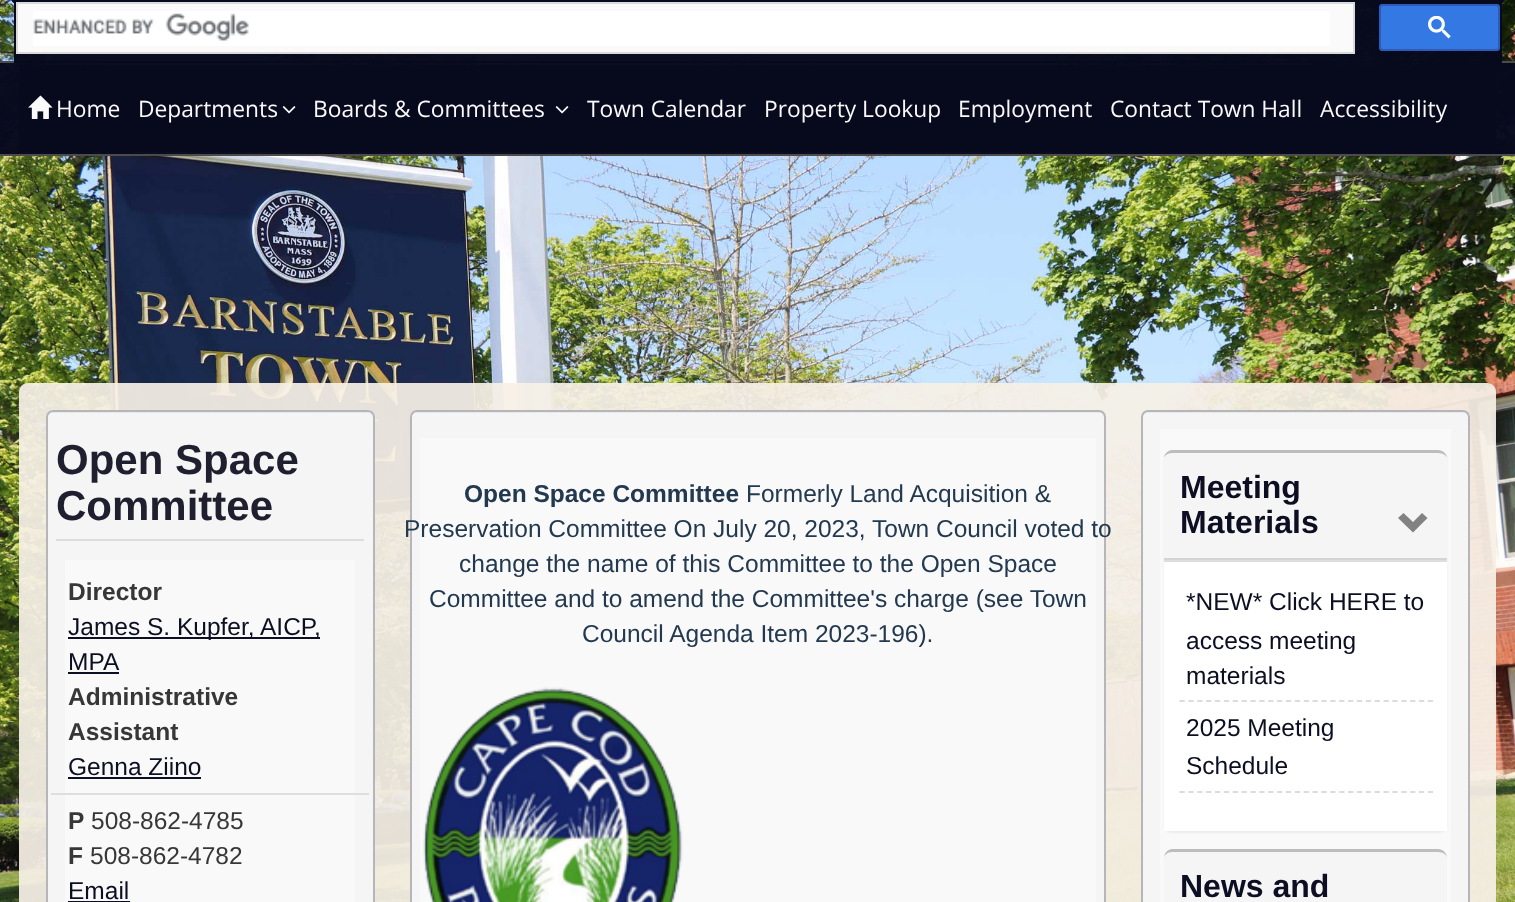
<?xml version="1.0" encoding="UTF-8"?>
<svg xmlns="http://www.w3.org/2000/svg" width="1515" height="902">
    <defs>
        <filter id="blur1" x="-50%" y="-200%" width="200%" height="500%"><feGaussianBlur stdDeviation="1"/></filter>
    </defs>
    <rect width="100%" height="100%" fill="#FFFFFF"/>
    <image x="0" y="0" width="1515" height="902" href="img_01.png"/>
    <rect x="11" y="-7" width="1494" height="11" rx="7" fill="#07091E" fill-opacity="0.98"/>
    <rect x="0" y="61" width="1515" height="95" fill="#07091E" fill-opacity="0.98"/>
    <rect x="0" y="61" width="1515" height="2" fill="#4E4B4B" fill-opacity="0.98"/>
    <rect x="14" y="0" width="1488" height="63" fill="#07091E" fill-opacity="0.98"/>
    <rect x="15" y="1" width="1486" height="61" fill="none" stroke="#07091E" stroke-opacity="0.98" stroke-width="2"/>
    <rect x="17" y="3" width="1337" height="50" fill="#FFFFFF" fill-opacity="0.98" stroke="#DADADA" stroke-width="2"/>
    <rect x="33" y="11" width="1297" height="35" fill="#FFFFFF"/>
    <image x="33" y="13" width="216" height="28" href="img_02.png"/>
    <rect x="1379" y="4" width="121" height="47" rx="4" fill="#357AE8" fill-opacity="0.98"/>
    <rect x="1380" y="5" width="119" height="45" rx="3" fill="none" stroke="#2F5BB7" stroke-opacity="0.98" stroke-width="2"/>
    <image x="1428" y="16" width="23" height="23" href="img_03.png"/>
    <rect x="0" y="154" width="1515" height="2" fill="#4E4B4B" fill-opacity="0.98"/>
    <rect x="19" y="65" width="1477" height="87" fill="#07091E" fill-opacity="0.98"/>
    <image x="28" y="95" width="25" height="24" href="img_04.png"/>
    <text x="56" y="117" font-family="Open Sans" font-size="22.75" fill="#FAFAFB">Home</text>
    <text x="138" y="117" font-family="Open Sans" font-size="22.75" fill="#FAFAFB">Departments</text>
    <image x="282" y="106" width="14" height="8" href="img_05.png"/>
    <text x="313" y="117" font-family="Open Sans" font-size="22.75" fill="#FAFAFB">Boards &amp; Committees</text>
    <image x="555" y="106" width="14" height="8" href="img_06.png"/>
    <text x="587" y="117" font-family="Open Sans" font-size="22.75" fill="#FAFAFB">Town Calendar</text>
    <text x="764" y="117" font-family="Open Sans" font-size="22.75" fill="#FAFAFB">Property Lookup</text>
    <text x="958" y="117" font-family="Open Sans" font-size="22.75" fill="#FAFAFB">Employment</text>
    <text x="1110" y="117" font-family="Open Sans" font-size="22.75" fill="#FAFAFB">Contact Town Hall</text>
    <text x="1320" y="117" font-family="Open Sans" font-size="22.75" fill="#FAFAFB">Accessibility</text>
    <path d="M 28 383 H 1487 C 1492 383 1496 387 1496 392 V 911 H 19 V 392 C 19 387 23 383 28 383 Z" fill="#F6F0E6" fill-opacity="0.93"/>
    <rect x="46" y="410" width="329" height="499" rx="7" fill="#F5F5F5" fill-opacity="0.98"/>
    <path d="M 52 413 H 368 C 370 413 373 415 373 418 V 416 C 373 413 371 411 368 411 H 52 C 49 411 47 413 47 416 V 418 C 47 415 50 413 52 413 Z" fill="#E9E9E9"/>
    <rect x="47" y="411" width="327" height="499" rx="6" fill="none" stroke="#B4B4B9" stroke-opacity="0.98" stroke-width="2"/>
    <rect x="56" y="539" width="308" height="2" fill="#DDDDDD"/>
    <text font-family="Liberation Sans" font-size="42" font-weight="700" fill="#1F1F2F">
        <tspan x="56" y="474">Open Space</tspan>
        <tspan x="56" y="520">Committee</tspan>
    </text>
    <rect x="65" y="560" width="290" height="342" fill="#F9F9F9"/>
    <text x="68" y="600" font-family="Liberation Sans" font-size="24.5" font-weight="700" fill="#373737">Director</text>
    <rect x="68" y="637" width="252" height="2" fill="#0C0E22"/>
    <text font-family="Liberation Sans" font-size="24.5" fill="#0C0E22">
        <tspan x="68" y="635">James S. Kupfer, AICP,</tspan>
        <tspan x="68" y="670">MPA</tspan>
    </text>
    <rect x="68" y="672" width="51" height="2" fill="#0C0E22"/>
    <text font-family="Liberation Sans" font-size="24.5" font-weight="700" fill="#373737">
        <tspan x="68" y="705">Administrative</tspan>
        <tspan x="68" y="740">Assistant</tspan>
    </text>
    <text x="68" y="775" font-family="Liberation Sans" font-size="24.5" fill="#0C0E22">Genna Ziino</text>
    <rect x="68" y="777" width="133" height="2" fill="#0C0E22"/>
    <rect x="51" y="793" width="318" height="2" fill="#DDDDDD" fill-opacity="0.98"/>
    <text x="68" y="829" font-family="Liberation Sans" font-size="24.5" font-weight="700" fill="#373737">P</text>
    <text x="91" y="829" font-family="Liberation Sans" font-size="24.5" fill="#373737">508-862-4785</text>
    <text x="68" y="864" font-family="Liberation Sans" font-size="24.5" font-weight="700" fill="#373737">F</text>
    <text x="90" y="864" font-family="Liberation Sans" font-size="24.5" fill="#373737">508-862-4782</text>
    <text x="68" y="899" font-family="Liberation Sans" font-size="24.5" fill="#0C0E22">Email</text>
    <rect x="68" y="901" width="62" height="1" fill="#0C0E22"/>
    <rect x="410" y="410" width="696" height="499" rx="7" fill="#F5F5F5" fill-opacity="0.98"/>
    <path d="M 416 413 H 1099 C 1102 413 1104 415 1104 418 V 416 C 1104 413 1102 411 1099 411 H 416 C 413 411 411 413 411 416 V 418 C 411 415 414 413 416 413 Z" fill="#E9E9E9"/>
    <rect x="411" y="411" width="694" height="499" rx="6" fill="none" stroke="#B4B4B9" stroke-opacity="0.98" stroke-width="2"/>
    <rect x="420" y="438" width="676" height="2" fill="#DDDDDD"/>
    <rect x="420" y="438" width="676" height="464" fill="#F9F9F9" fill-opacity="0.98"/>
    <text x="464" y="502" font-family="Liberation Sans" font-size="24.5" font-weight="700" fill="#22394F">Open Space Committee</text>
    <text x="746" y="502" font-family="Liberation Sans" font-size="24.5" fill="#22394F">Formerly Land Acquisition &amp;</text>
    <text x="404" y="537" font-family="Liberation Sans" font-size="24.5" fill="#22394F">Preservation Committee On July 20, 2023, Town Council voted to</text>
    <text x="459" y="572" font-family="Liberation Sans" font-size="24.5" fill="#22394F">change the name of this Committee to the Open Space</text>
    <text x="429" y="607" font-family="Liberation Sans" font-size="24.5" fill="#22394F">Committee and to amend the Committee's charge (see Town</text>
    <text x="582" y="642" font-family="Liberation Sans" font-size="24.5" fill="#22394F">Council Agenda Item 2023-196).</text>
    <image x="423" y="687" width="260" height="215" href="img_07.png"/>
    <rect x="1141" y="410" width="329" height="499" rx="7" fill="#F5F5F5" fill-opacity="0.98"/>
    <path d="M 1148 413 H 1463 C 1466 413 1468 415 1468 418 V 416 C 1468 413 1466 411 1463 411 H 1148 C 1145 411 1143 413 1143 416 V 418 C 1143 415 1145 413 1148 413 Z" fill="#E9E9E9"/>
    <rect x="1142" y="411" width="327" height="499" rx="6" fill="none" stroke="#B4B4B9" stroke-opacity="0.98" stroke-width="2"/>
    <rect x="1160" y="429" width="291" height="473" fill="#F9F9F9"/>
    <rect x="1164" y="452" width="283" height="381" rx="7" fill="#000000" fill-opacity="0.05" filter="url(#blur1)"/>
    <rect x="1164" y="450" width="283" height="381" rx="7" fill="#FFFFFF"/>
    <path d="M 1173 450 H 1438 C 1443 450 1447 454 1447 459 V 560 H 1164 V 459 C 1164 454 1168 450 1173 450 Z" fill="#F5F5F5"/>
    <path d="M 1172 450 C 1168 450 1164 454 1164 458 C 1164 456 1168 453 1172 453 H 1438 C 1443 453 1447 456 1447 458 C 1447 454 1443 450 1438 450 Z" fill="#BCBCBC" fill-opacity="0.98"/>
    <rect x="1164" y="558" width="283" height="2" fill="#D4D4D4"/>
    <text font-family="Liberation Sans" font-size="32" font-weight="700" fill="#0C0E22">
        <tspan x="1180" y="498">Meeting</tspan>
        <tspan x="1180" y="533">Materials</tspan>
    </text>
    <path d="M 1427.5 518 L 1413 532.5 L 1398 518 L 1403.5 513 L 1413 522 L 1422 513 Z" fill="#828282"/>
    <rect x="1164" y="825" width="283" height="6" fill="#FFFFFF" fill-opacity="0.98"/>
    <rect x="1164" y="560" width="283" height="2" fill="#DEDEDE"/>
    <path d="M 1179.5 701 H 1433" fill="none" stroke="#DCDCDC" stroke-width="1.8" stroke-dasharray="5.25 3.62"/>
    <text font-family="Liberation Sans" font-size="24.5" fill="#0C0E22">
        <tspan x="1186" y="610">*NEW* Click HERE to</tspan>
        <tspan x="1186" y="649">access meeting</tspan>
        <tspan x="1186" y="684">materials</tspan>
    </text>
    <path d="M 1179.5 792 H 1433" fill="none" stroke="#DCDCDC" stroke-width="1.8" stroke-dasharray="5.25 3.62"/>
    <text font-family="Liberation Sans" font-size="24.5" fill="#0C0E22">
        <tspan x="1186" y="736">2025 Meeting</tspan>
        <tspan x="1186" y="774">Schedule</tspan>
    </text>
    <rect x="1164" y="849" width="283" height="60" rx="7" fill="#FFFFFF"/>
    <path d="M 1173 849 H 1438 C 1443 849 1447 853 1447 858 V 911 H 1164 V 858 C 1164 853 1168 849 1173 849 Z" fill="#F5F5F5"/>
    <path d="M 1172 849 C 1168 849 1164 853 1164 858 C 1164 855 1168 852 1172 852 H 1438 C 1443 852 1447 855 1447 858 C 1447 853 1443 849 1438 849 Z" fill="#BCBCBC" fill-opacity="0.98"/>
    <text x="1180" y="897" font-family="Liberation Sans" font-size="32" font-weight="700" fill="#0C0E22">News and</text>
</svg>
